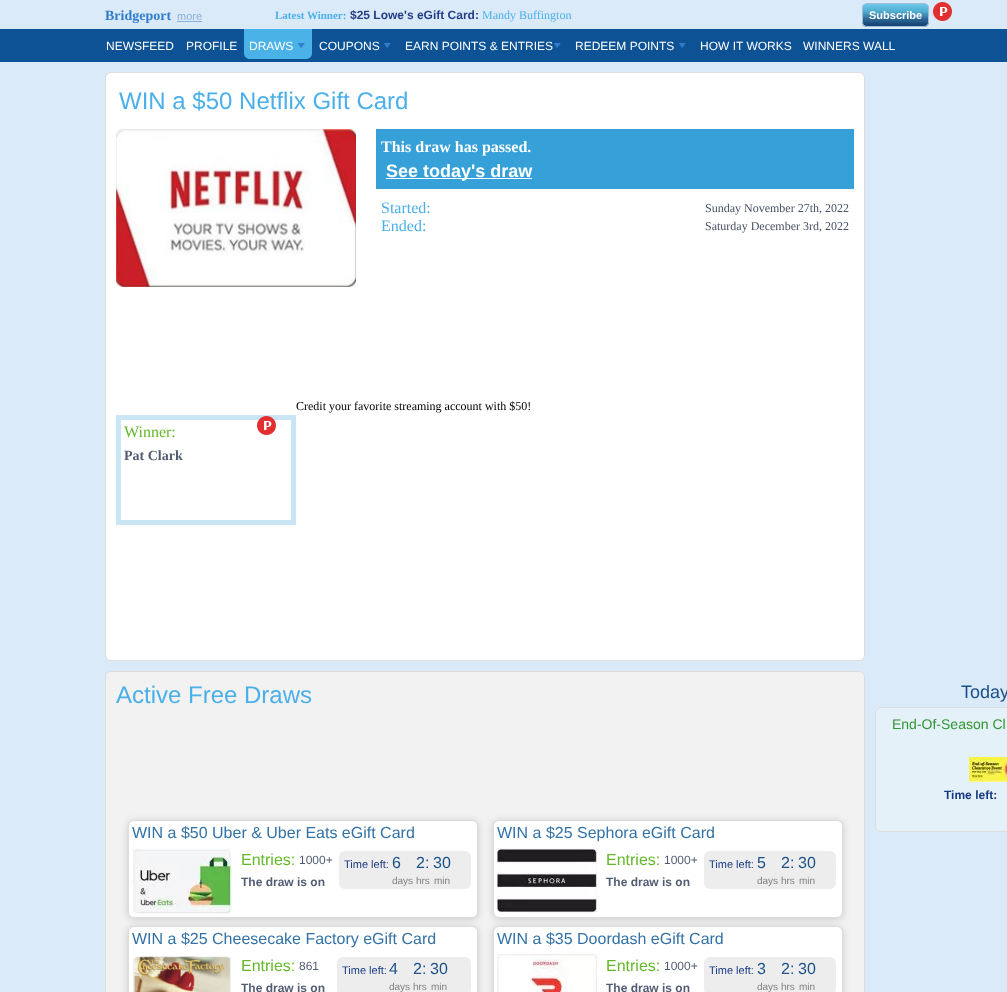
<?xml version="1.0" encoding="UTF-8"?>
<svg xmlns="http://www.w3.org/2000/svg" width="1007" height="992">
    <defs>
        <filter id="blur1" x="-50%" y="-200%" width="200%" height="500%"><feGaussianBlur stdDeviation="3.5"/></filter>
    </defs>
    <rect width="100%" height="100%" fill="#DBEAF9"/>
    <text x="105" y="20" font-family="Liberation Serif" font-size="14" font-weight="700" fill="#307EC9">Bridgeport</text>
    <text x="177" y="20" font-family="Liberation Sans" font-size="11" fill="#87B1DA">more</text>
    <rect x="177" y="21" width="25" height="1" fill="#87B1DA"/>
    <text x="275" y="19" font-family="Liberation Serif" font-size="11" font-weight="700" fill="#4BAFEA">Latest Winner:</text>
    <text x="350" y="19" font-family="Liberation Sans" font-size="12" font-weight="700" fill="#243D87">$25 Lowe's eGift Card:</text>
    <text x="482" y="19" font-family="Liberation Serif" font-size="12" fill="#4BAFEA">Mandy Buffington</text>
    <image x="862" y="4" width="67" height="23" href="img_01.png"/>
    <rect x="862.5" y="3.5" width="66" height="23" rx="4.5" fill="none" stroke="#A0BFD4"/>
    <text x="869" y="19" font-family="Liberation Sans" font-size="11" font-weight="700" fill="#FFFFFF">Subscribe</text>
    <image x="933" y="2" width="19" height="19" href="img_02.png"/>
    <rect x="0" y="29" width="1007" height="33" fill="#0D5295"/>
    <text x="106" y="50" font-family="Liberation Sans" font-size="12" fill="#FFFFFF">NEWSFEED</text>
    <text x="186" y="50" font-family="Liberation Sans" font-size="12" fill="#FFFFFF">PROFILE</text>
    <path d="M 244 29 H 312 V 53 C 312 56.5 309.5 59 306 59 H 250 C 246.5 59 244 56.5 244 53 Z" fill="#4AB2E7"/>
    <text x="249" y="50" font-family="Liberation Sans" font-size="12" fill="#FFFFFF">DRAWS</text>
    <image x="298" y="43" width="7" height="5" href="img_03.png"/>
    <text x="319" y="50" font-family="Liberation Sans" font-size="12" fill="#FFFFFF">COUPONS</text>
    <image x="384" y="43" width="7" height="5" href="img_04.png"/>
    <text x="405" y="50" font-family="Liberation Sans" font-size="12" fill="#FFFFFF">EARN POINTS &amp; ENTRIES</text>
    <image x="554" y="43" width="7" height="5" href="img_04.png"/>
    <text x="575" y="50" font-family="Liberation Sans" font-size="12" fill="#FFFFFF">REDEEM POINTS</text>
    <image x="679" y="43" width="7" height="5" href="img_04.png"/>
    <text x="700" y="50" font-family="Liberation Sans" font-size="12" fill="#FFFFFF">HOW IT WORKS</text>
    <text x="803" y="50" font-family="Liberation Sans" font-size="12" fill="#FFFFFF">WINNERS WALL</text>
    <rect x="105.5" y="72.5" width="759" height="588" rx="5.5" fill="#FFFFFF" stroke="#DDDDDD"/>
    <text x="119" y="109" font-family="Liberation Sans" font-size="24" fill="#4BAFEA">WIN a $50 Netflix Gift Card</text>
    <image x="116" y="129" width="240" height="158" href="img_05.png"/>
    <rect x="376" y="129" width="478" height="60" fill="#35A1D8"/>
    <text x="381" y="152" font-family="Liberation Serif" font-size="16" font-weight="700" fill="#FFFFFF">This draw has passed.</text>
    <rect x="386" y="178" width="146" height="1" fill="#FFFFFF"/>
    <text x="386" y="177" font-family="Liberation Sans" font-size="18" font-weight="700" fill="#FFFFFF">See today's draw</text>
    <text x="381" y="213" font-family="Liberation Serif" font-size="16" fill="#4BAFEA">Started:</text>
    <text x="705" y="212" font-family="Liberation Serif" font-size="12" fill="#475064">Sunday November 27th, 2022</text>
    <text x="381" y="231" font-family="Liberation Serif" font-size="16" fill="#4BAFEA">Ended:</text>
    <text x="705" y="230" font-family="Liberation Serif" font-size="12" fill="#475064">Saturday December 3rd, 2022</text>
    <text x="296" y="410" font-family="Liberation Serif" font-size="12" fill="#000000">Credit your favorite streaming account with $50!</text>
    <rect x="118.5" y="417.5" width="175" height="105" fill="none" stroke="#CAE5F3" stroke-width="5"/>
    <image x="257" y="416" width="19" height="19" href="img_06.png"/>
    <text x="124" y="437" font-family="Liberation Serif" font-size="16" fill="#64B829">Winner:</text>
    <text x="124" y="460" font-family="Liberation Serif" font-size="14" font-weight="700" fill="#525C72">Pat Clark</text>
    <rect x="105.5" y="671.5" width="759" height="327" rx="5.5" fill="#F2F2F2" stroke="#DDDDDD"/>
    <text x="116" y="703" font-family="Liberation Sans" font-size="24" fill="#4BAFEA">Active Free Draws</text>
    <rect x="128" y="821" width="350" height="98" rx="6" fill="#000000" fill-opacity="0.18" filter="url(#blur1)"/>
    <rect x="128.5" y="820.5" width="349" height="97" rx="5.5" fill="#FFFFFF" stroke="#DDDDDD"/>
    <text x="132" y="838" font-family="Liberation Sans" font-size="16" fill="#3372A7">WIN a $50 Uber &amp; Uber Eats eGift Card</text>
    <image x="132" y="848" width="100" height="66" href="img_07.png"/>
    <text x="241" y="865" font-family="Liberation Sans" font-size="16" fill="#64B829">Entries:</text>
    <text x="299" y="864" font-family="Liberation Sans" font-size="12" fill="#525C72">1000+</text>
    <rect x="339" y="851" width="132" height="38" rx="6" fill="#EDEDED"/>
    <text x="344" y="868" font-family="Liberation Sans" font-size="11" fill="#173983">Time left:</text>
    <text x="392" y="868" font-family="Liberation Sans" font-size="16" fill="#1B5189">6</text>
    <text x="416" y="868" font-family="Liberation Sans" font-size="16" fill="#1B5189">2:</text>
    <text x="433" y="868" font-family="Liberation Sans" font-size="16" fill="#1B5189">30</text>
    <text x="392" y="884" font-family="Liberation Sans" font-size="10" fill="#808080">days hrs</text>
    <text x="434" y="884" font-family="Liberation Sans" font-size="10" fill="#808080">min</text>
    <text x="241" y="886" font-family="Liberation Sans" font-size="12" font-weight="700" fill="#525C72">The draw is on</text>
    <rect x="493" y="821" width="350" height="98" rx="6" fill="#000000" fill-opacity="0.18" filter="url(#blur1)"/>
    <rect x="493.5" y="820.5" width="349" height="97" rx="5.5" fill="#FFFFFF" stroke="#DDDDDD"/>
    <text x="497" y="838" font-family="Liberation Sans" font-size="16" fill="#3372A7">WIN a $25 Sephora eGift Card</text>
    <image x="497" y="848" width="100" height="66" href="img_08.png"/>
    <text x="606" y="865" font-family="Liberation Sans" font-size="16" fill="#64B829">Entries:</text>
    <text x="664" y="864" font-family="Liberation Sans" font-size="12" fill="#525C72">1000+</text>
    <rect x="704" y="851" width="132" height="38" rx="6" fill="#EDEDED"/>
    <text x="709" y="868" font-family="Liberation Sans" font-size="11" fill="#173983">Time left:</text>
    <text x="757" y="868" font-family="Liberation Sans" font-size="16" fill="#1B5189">5</text>
    <text x="781" y="868" font-family="Liberation Sans" font-size="16" fill="#1B5189">2:</text>
    <text x="798" y="868" font-family="Liberation Sans" font-size="16" fill="#1B5189">30</text>
    <text x="757" y="884" font-family="Liberation Sans" font-size="10" fill="#808080">days hrs</text>
    <text x="799" y="884" font-family="Liberation Sans" font-size="10" fill="#808080">min</text>
    <text x="606" y="886" font-family="Liberation Sans" font-size="12" font-weight="700" fill="#525C72">The draw is on</text>
    <rect x="128" y="927" width="350" height="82" rx="6" fill="#000000" fill-opacity="0.18" filter="url(#blur1)"/>
    <rect x="128.5" y="926.5" width="349" height="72" rx="5.5" fill="#FFFFFF" stroke="#DDDDDD"/>
    <text x="132" y="944" font-family="Liberation Sans" font-size="16" fill="#3372A7">WIN a $25 Cheesecake Factory eGift Card</text>
    <image x="133" y="956" width="98" height="36" href="img_09.png"/>
    <text x="241" y="971" font-family="Liberation Sans" font-size="16" fill="#64B829">Entries:</text>
    <text x="299" y="970" font-family="Liberation Sans" font-size="12" fill="#525C72">861</text>
    <rect x="337" y="957" width="134" height="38" rx="6" fill="#EDEDED"/>
    <text x="342" y="974" font-family="Liberation Sans" font-size="11" fill="#173983">Time left:</text>
    <text x="389" y="974" font-family="Liberation Sans" font-size="16" fill="#1B5189">4</text>
    <text x="413" y="974" font-family="Liberation Sans" font-size="16" fill="#1B5189">2:</text>
    <text x="430" y="974" font-family="Liberation Sans" font-size="16" fill="#1B5189">30</text>
    <text x="389" y="990" font-family="Liberation Sans" font-size="10" fill="#808080">days hrs</text>
    <text x="431" y="990" font-family="Liberation Sans" font-size="10" fill="#808080">min</text>
    <text x="241" y="992" font-family="Liberation Sans" font-size="12" font-weight="700" fill="#525C72">The draw is on</text>
    <rect x="493" y="927" width="350" height="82" rx="6" fill="#000000" fill-opacity="0.18" filter="url(#blur1)"/>
    <rect x="493.5" y="926.5" width="349" height="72" rx="5.5" fill="#FFFFFF" stroke="#DDDDDD"/>
    <text x="497" y="944" font-family="Liberation Sans" font-size="16" fill="#3372A7">WIN a $35 Doordash eGift Card</text>
    <image x="497" y="954" width="100" height="38" href="img_10.png"/>
    <text x="606" y="971" font-family="Liberation Sans" font-size="16" fill="#64B829">Entries:</text>
    <text x="664" y="970" font-family="Liberation Sans" font-size="12" fill="#525C72">1000+</text>
    <rect x="704" y="957" width="132" height="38" rx="6" fill="#EDEDED"/>
    <text x="709" y="974" font-family="Liberation Sans" font-size="11" fill="#173983">Time left:</text>
    <text x="757" y="974" font-family="Liberation Sans" font-size="16" fill="#1B5189">3</text>
    <text x="781" y="974" font-family="Liberation Sans" font-size="16" fill="#1B5189">2:</text>
    <text x="798" y="974" font-family="Liberation Sans" font-size="16" fill="#1B5189">30</text>
    <text x="757" y="990" font-family="Liberation Sans" font-size="10" fill="#808080">days hrs</text>
    <text x="799" y="990" font-family="Liberation Sans" font-size="10" fill="#808080">min</text>
    <text x="606" y="992" font-family="Liberation Sans" font-size="12" font-weight="700" fill="#525C72">The draw is on</text>
    <text x="961" y="698" font-family="Liberation Sans" font-size="18" fill="#1B5189">Today</text>
    <rect x="875.5" y="707.5" width="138" height="124" rx="5.5" fill="#E4F1F8" stroke="#DDDDDD"/>
    <text x="892" y="729" font-family="Liberation Sans" font-size="14" fill="#319531">End-Of-Season Cl</text>
    <image x="969" y="757" width="38" height="25" href="img_11.png"/>
    <text x="944" y="799" font-family="Liberation Sans" font-size="12" font-weight="700" fill="#173983">Time left:</text>
</svg>
